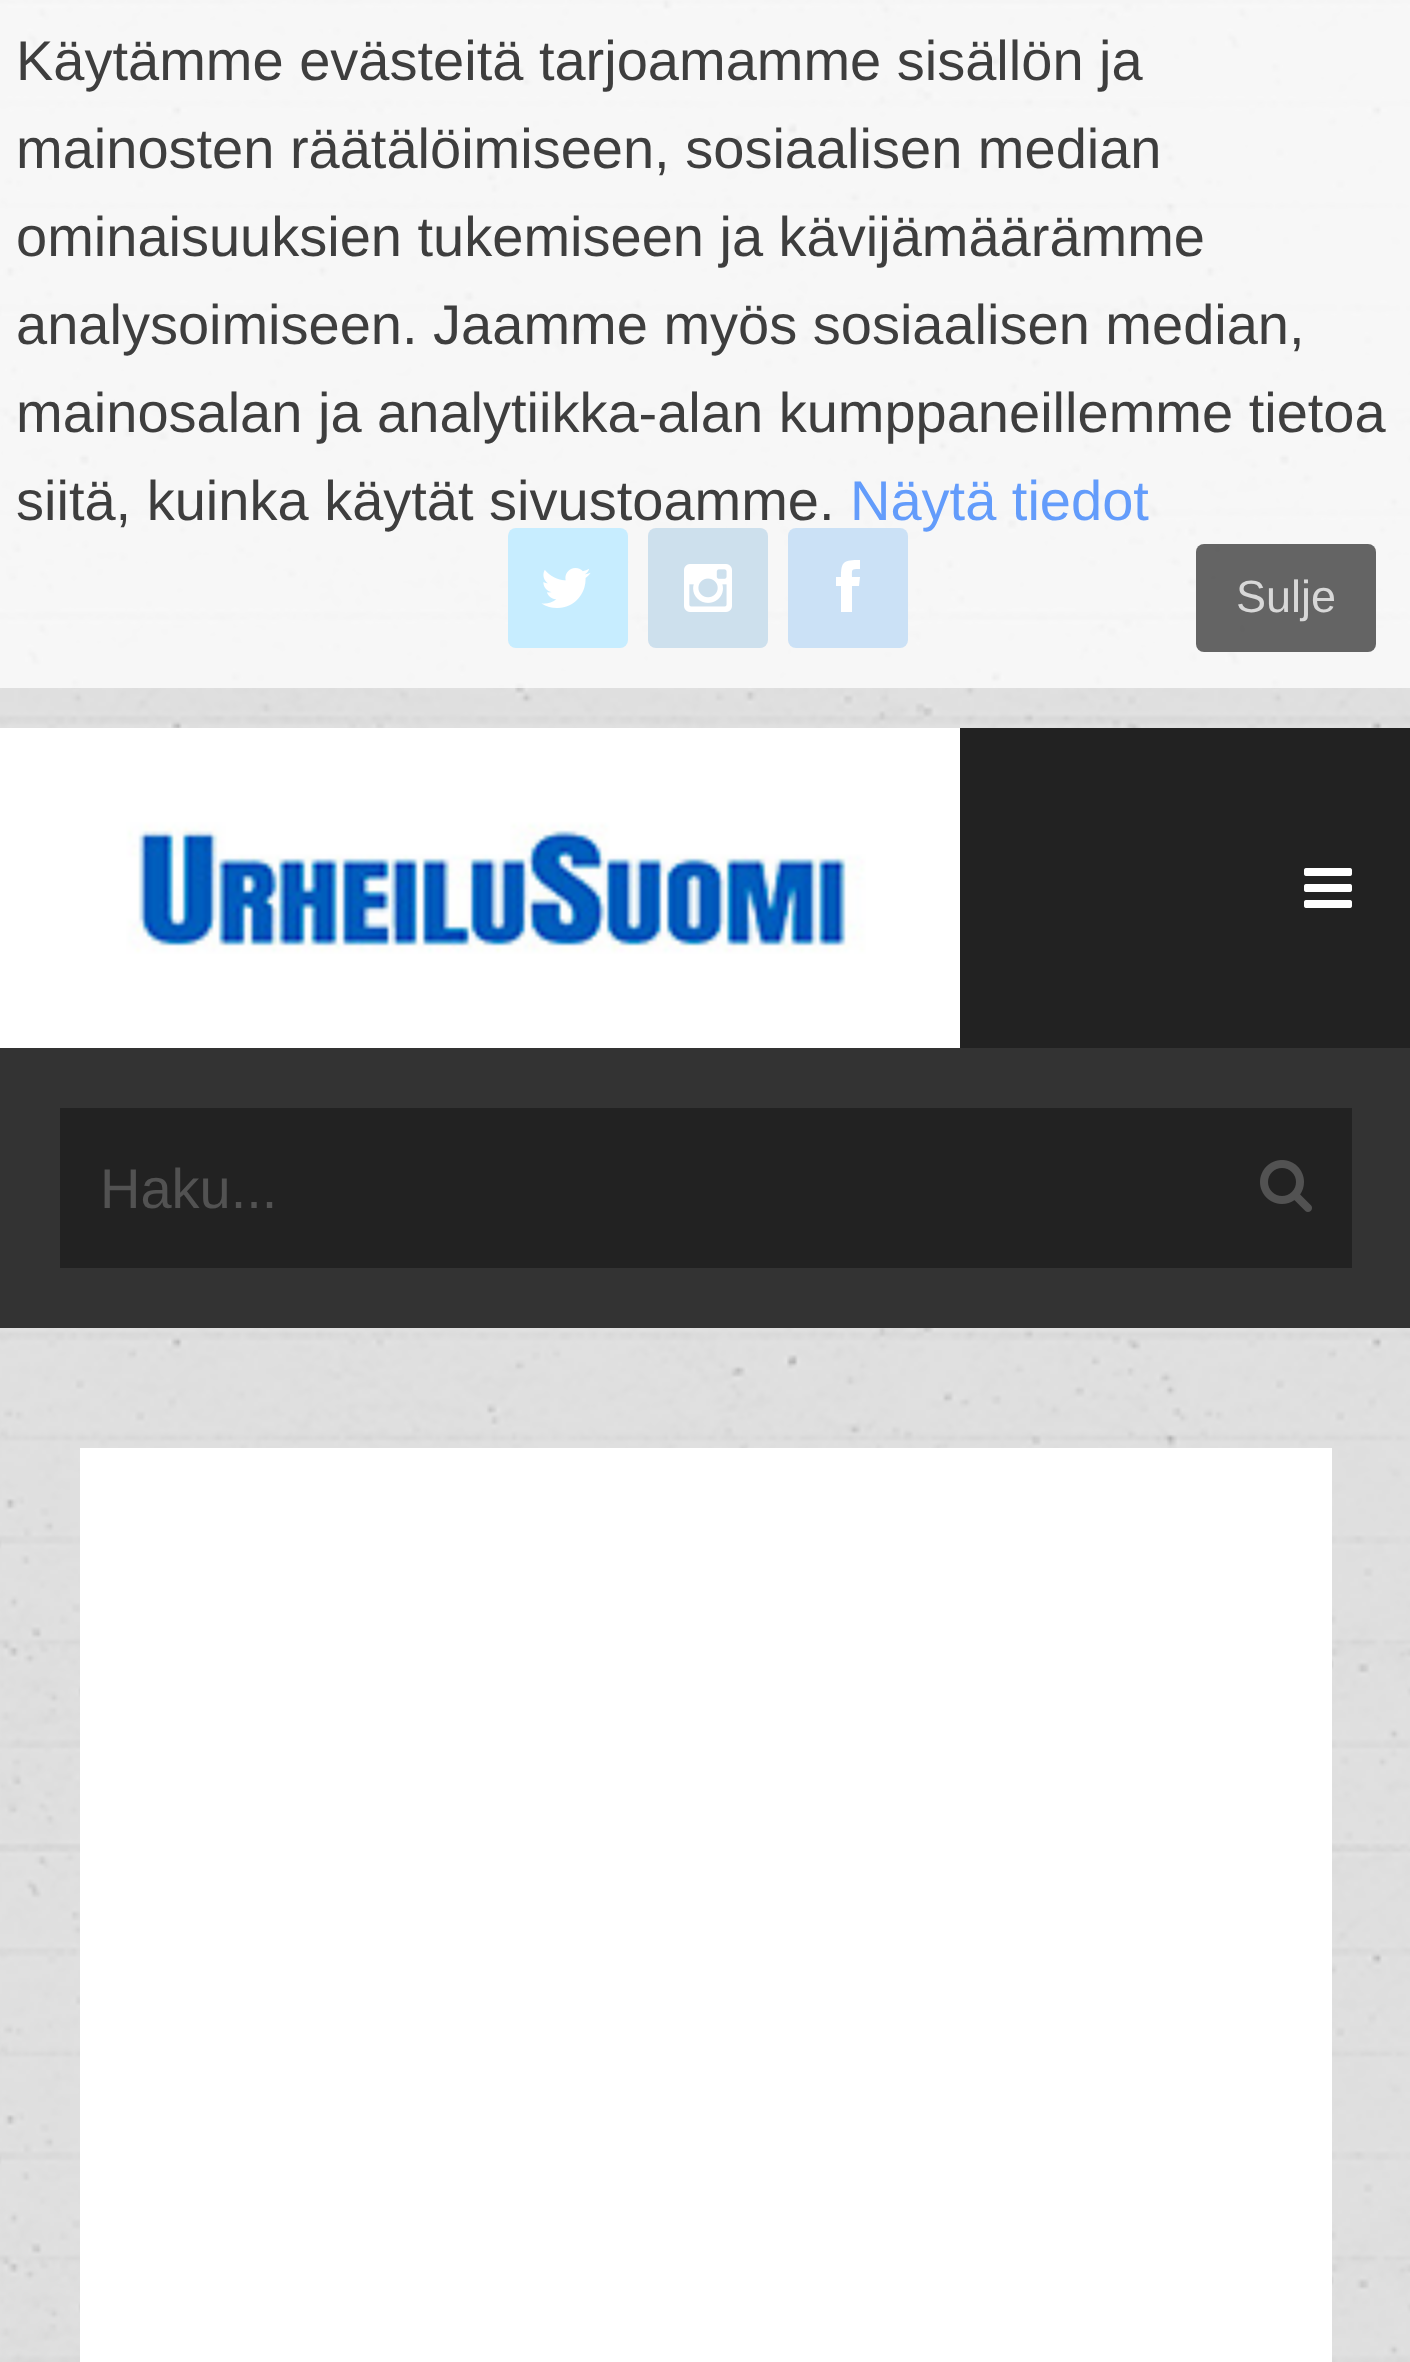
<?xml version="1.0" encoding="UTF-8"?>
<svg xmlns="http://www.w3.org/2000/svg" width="1410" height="2362">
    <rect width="100%" height="100%" fill="#FFFFFF"/>
    <image x="0" y="0" width="1410" height="2362" href="img_01.png"/>
    <rect x="508" y="528" width="120" height="120" rx="8" fill="#20B6FF"/>
    <image x="541" y="568" width="50" height="40" href="img_02.png"/>
    <rect x="648" y="528" width="120" height="120" rx="8" fill="#3B82B9"/>
    <image x="684" y="564" width="48" height="48" href="img_03.png"/>
    <rect x="788" y="528" width="120" height="120" rx="8" fill="#3289DA"/>
    <path d="M 852 577 H 860 L 859 586 H 852 V 612 H 841 V 586 H 836 V 577 H 841 C 841 561 844 560 860 560 V 569 C 851 569 852 569 852 577 Z" fill="#FFFFFF"/>
    <rect x="0" y="0" width="1410" height="688" fill="#FFFFFF" fill-opacity="0.75"/>
    <text font-family="Liberation Sans" font-size="56" fill="#3E3E3E">
        <tspan x="16" y="80">Käytämme evästeitä tarjoamamme sisällön ja</tspan>
        <tspan x="16" y="168">mainosten räätälöimiseen, sosiaalisen median</tspan>
        <tspan x="16" y="256">ominaisuuksien tukemiseen ja kävijämäärämme</tspan>
        <tspan x="16" y="344">analysoimiseen. Jaamme myös sosiaalisen median,</tspan>
        <tspan x="16" y="432">mainosalan ja analytiikka-alan kumppaneillemme tietoa</tspan>
        <tspan x="16" y="520">siitä, kuinka käytät sivustoamme.</tspan>
    </text>
    <text x="850" y="520" font-family="Liberation Sans" font-size="56" fill="#639CFB">Näytä tiedot</text>
    <rect x="1196" y="544" width="180" height="108" rx="8" fill="#333333" fill-opacity="0.75"/>
    <text x="1236" y="612" font-family="Liberation Sans" font-size="45" fill="#D8D8D8">Sulje</text>
    <rect x="0" y="1048" width="1410" height="280" fill="#333333"/>
    <image x="0" y="728" width="960" height="320" href="img_04.png"/>
    <rect x="960" y="728" width="450" height="320" fill="#222222"/>
    <image x="1304" y="868" width="48" height="40" href="img_05.png"/>
    <rect x="60" y="1108" width="1292" height="160" fill="#222222"/>
    <text x="100" y="1208" font-family="Liberation Sans" font-size="56" fill="#525252">Haku...</text>
    <image x="1260" y="1160" width="52" height="52" href="img_06.png"/>
    <rect x="80" y="1448" width="1252" height="914" fill="#FFFFFF"/>
</svg>
